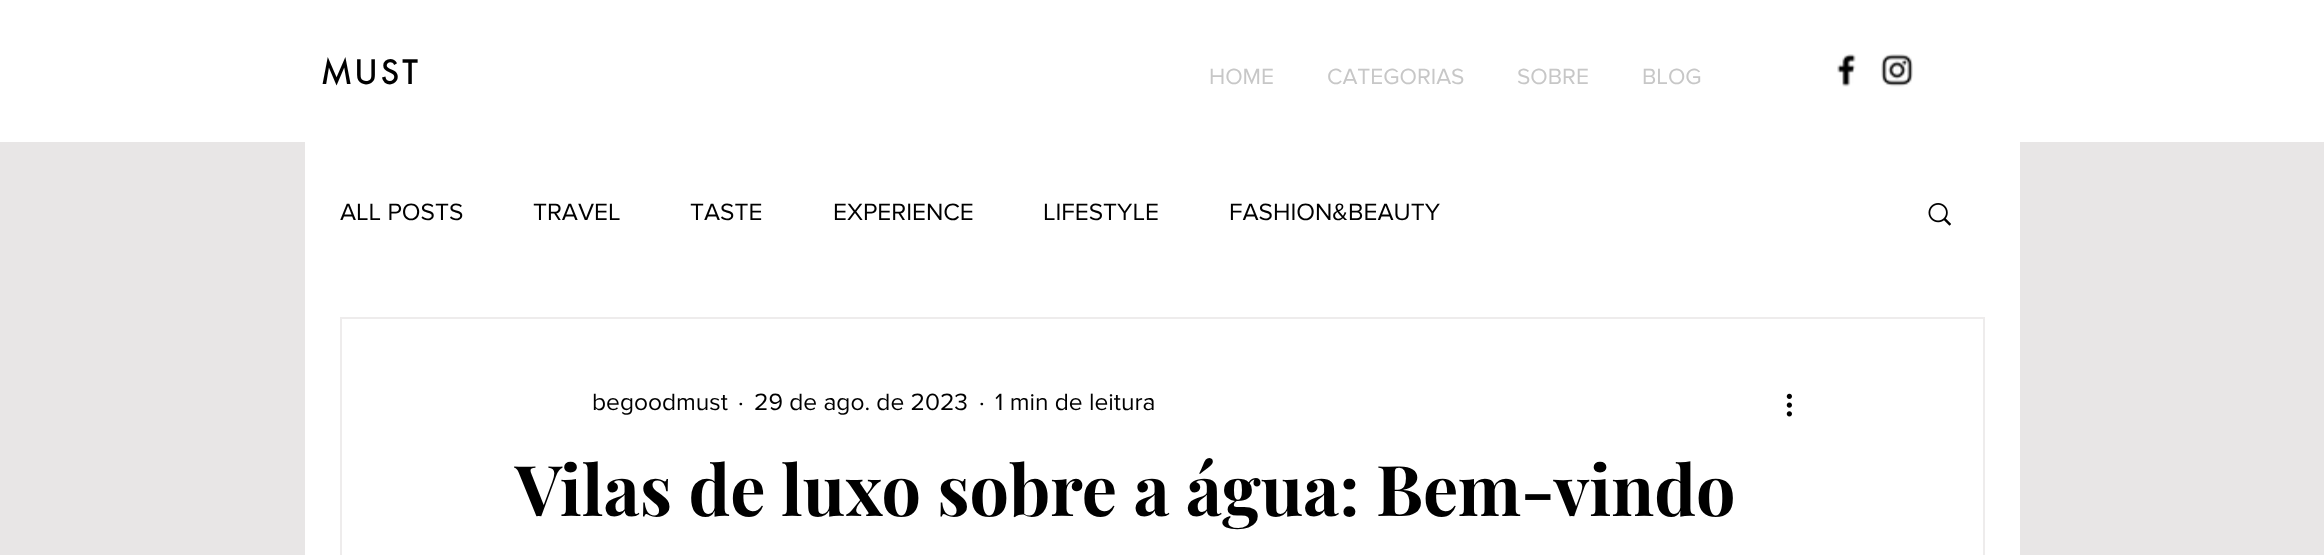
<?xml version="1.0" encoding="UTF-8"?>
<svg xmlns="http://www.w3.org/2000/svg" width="2324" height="555">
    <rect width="100%" height="100%" fill="#E8E6E6"/>
    <rect x="0" y="0" width="2324" height="142" fill="#FFFFFF"/>
    <text x="322" y="84" font-family="futura" font-size="31.5" font-weight="700" letter-spacing="4.5" fill="#000000">MUST</text>
    <text x="1209" y="84" font-family="'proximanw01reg'" font-size="22.75" fill="#C7C7C7">HOME</text>
    <text x="1327" y="84" font-family="'proximanw01reg'" font-size="22.75" fill="#C7C7C7">CATEGORIAS</text>
    <text x="1517" y="84" font-family="'proximanw01reg'" font-size="22.75" fill="#C7C7C7">SOBRE</text>
    <text x="1642" y="84" font-family="'proximanw01reg'" font-size="22.75" fill="#C7C7C7">BLOG</text>
    <image x="1837" y="54" width="19" height="33" href="img_01.png"/>
    <image x="1881" y="54" width="32" height="33" href="img_02.png"/>
    <rect x="305" y="142" width="1715" height="413" fill="#FFFFFF"/>
    <text x="340" y="220" font-family="'proximanw01reg'" font-size="24.5" fill="#000000">ALL POSTS</text>
    <text x="533" y="220" font-family="'proximanw01reg'" font-size="24.5" fill="#000000">TRAVEL</text>
    <text x="690" y="220" font-family="'proximanw01reg'" font-size="24.5" fill="#000000">TASTE</text>
    <text x="833" y="220" font-family="'proximanw01reg'" font-size="24.5" fill="#000000">EXPERIENCE</text>
    <text x="1043" y="220" font-family="'proximanw01reg'" font-size="24.5" fill="#000000">LIFESTYLE</text>
    <text x="1229" y="220" font-family="'proximanw01reg'" font-size="24.5" fill="#000000">FASHION&amp;BEAUTY</text>
    <image x="1928" y="203" width="23" height="23" href="img_03.png"/>
    <rect x="341" y="318" width="1643" height="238" fill="none" stroke="#EEECEC" stroke-width="2"/>
    <text x="592" y="410" font-family="'proximanw01reg'" font-size="24.5" fill="#000000">begoodmust</text>
    <text x="738" y="410" font-family="'proximanw01reg'" font-size="24.5" fill="#000000">·</text>
    <text x="754" y="410" font-family="'proximanw01reg'" font-size="24.5" fill="#000000">29 de ago. de 2023</text>
    <text x="979" y="410" font-family="'proximanw01reg'" font-size="24.5" fill="#000000">·</text>
    <text x="995" y="410" font-family="'proximanw01reg'" font-size="24.5" fill="#000000">1 min de leitura</text>
    <image x="1786" y="393" width="6" height="24" href="img_04.png"/>
    <text x="515" y="516" font-family="Playfair Display" font-size="70" font-weight="700" fill="#000000">Vilas de luxo sobre a água: Bem-vindo</text>
</svg>
